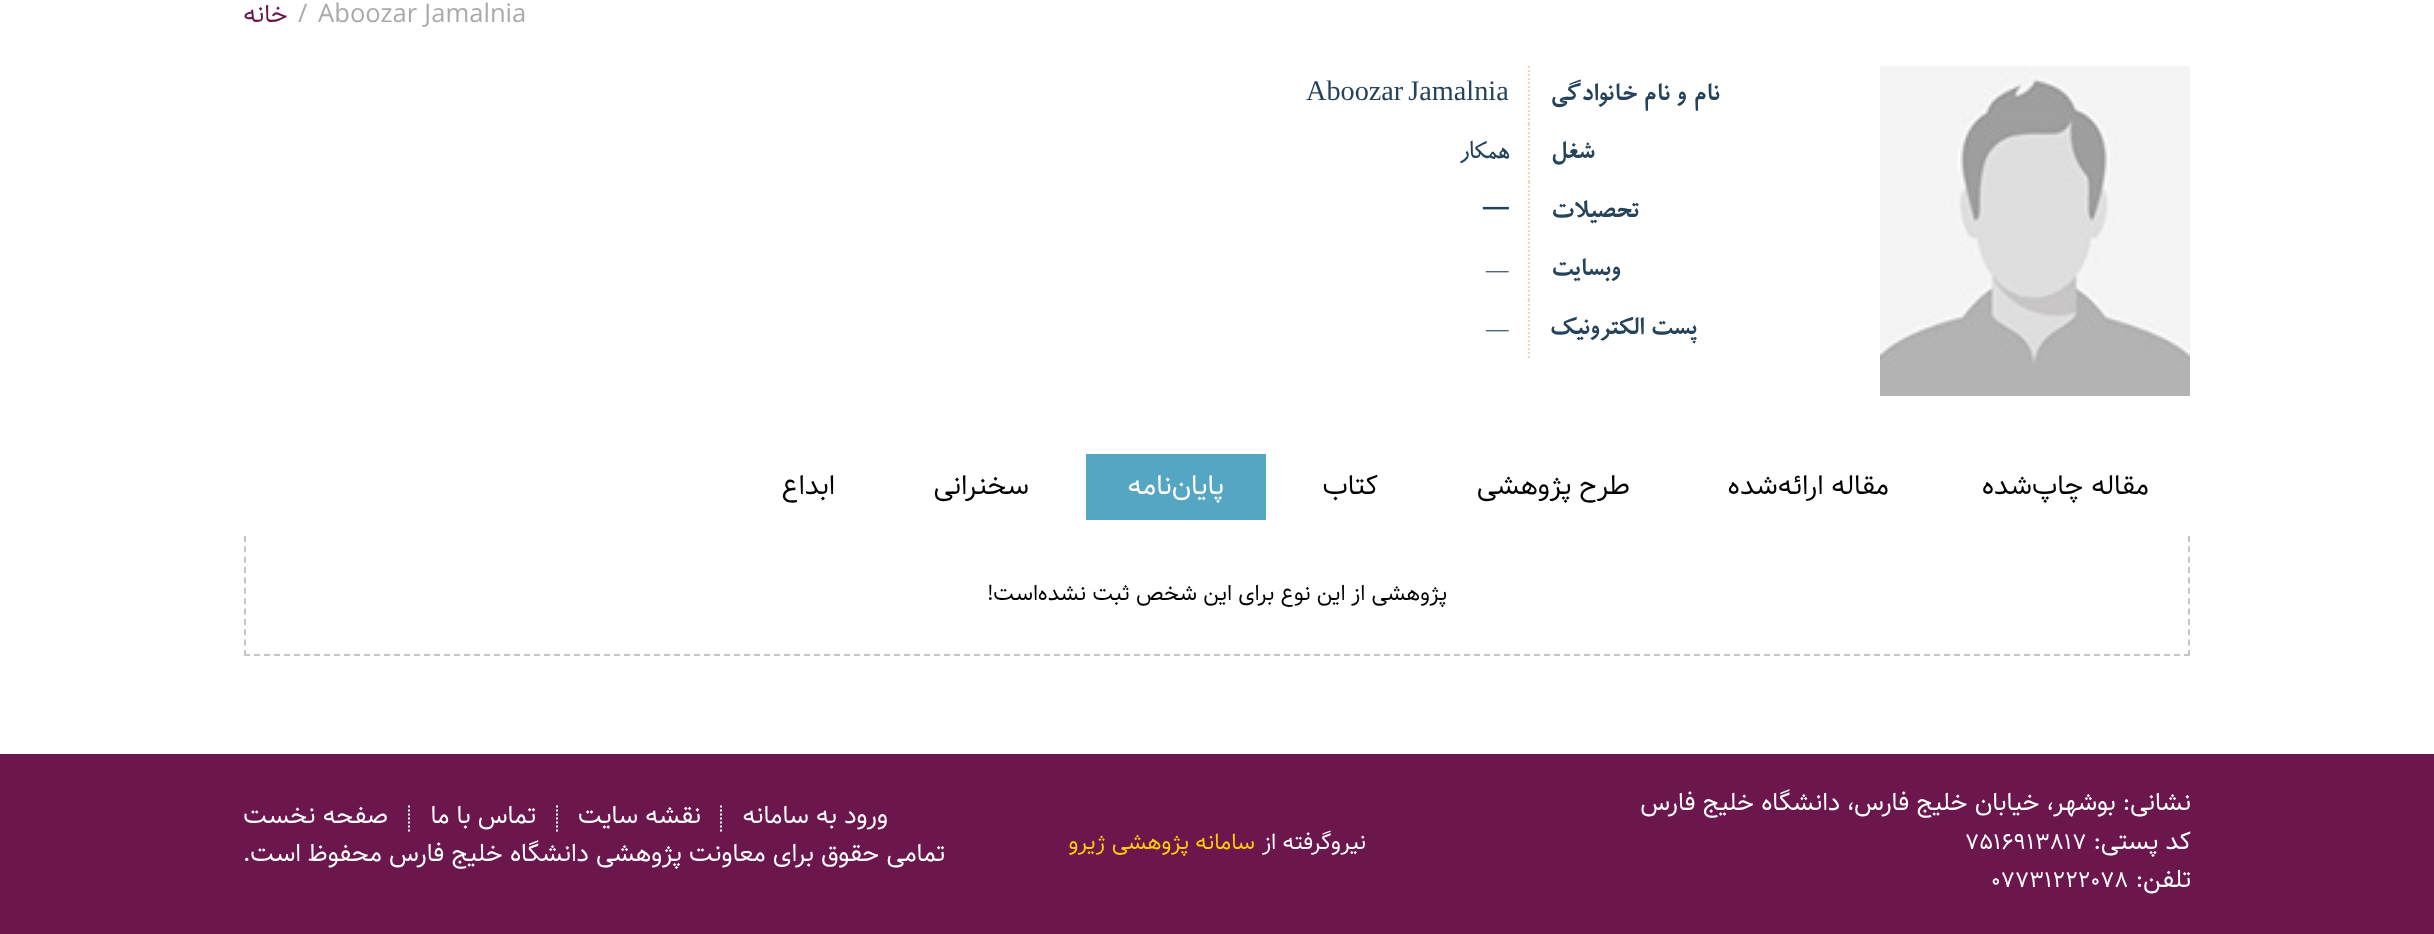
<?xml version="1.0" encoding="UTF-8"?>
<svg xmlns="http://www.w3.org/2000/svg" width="2434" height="934">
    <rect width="100%" height="100%" fill="#FFFFFF"/>
    <text x="318" y="22" font-family="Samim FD" font-size="25.6" fill="#AAAAAA">Aboozar Jamalnia</text>
    <text x="298" y="22" font-family="Samim FD" font-size="25.6" fill="#AAAAAA">/</text>
    <text x="288" y="22" font-family="Samim FD" font-size="25.6" direction="rtl" fill="#6B164C">خانه</text>
    <image x="1880" y="66" width="310" height="330" href="img_01.png"/>
    <path d="M 1529 66 V 124" fill="none" stroke="#F3D5B2" stroke-width="2" stroke-dasharray="2 2"/>
    <text x="1720" y="100" font-family="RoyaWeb" font-size="28.25" font-weight="700" direction="rtl" fill="#26435C">نام و نام خانوادگی</text>
    <text x="1306" y="100" word-spacing="-2" font-family="Liberation Serif" font-size="28.25" fill="#26435C">Aboozar Jamalnia</text>
    <path d="M 1529 124 V 182" fill="none" stroke="#F3D5B2" stroke-width="2" stroke-dasharray="2 2"/>
    <text x="1595" y="158" font-family="RoyaWeb" font-size="28.25" font-weight="700" direction="rtl" fill="#26435C">شغل</text>
    <text x="1509" y="158" font-family="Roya" font-size="28.25" direction="rtl" fill="#26435C">همکار</text>
    <path d="M 1529 182 V 242" fill="none" stroke="#F3D5B2" stroke-width="2" stroke-dasharray="2 2"/>
    <text x="1639" y="217" font-family="RoyaWeb" font-size="28.25" font-weight="700" direction="rtl" fill="#26435C">تحصیلات</text>
    <text x="1483" y="217" font-family="Roya" font-size="28.25" fill="#26435C">—</text>
    <path d="M 1529 242 V 300" fill="none" stroke="#F3D5B2" stroke-width="2" stroke-dasharray="2 2"/>
    <text x="1621" y="275" font-family="RoyaWeb" font-size="28.25" font-weight="700" direction="rtl" fill="#26435C">وبسایت</text>
    <text x="1486" y="277" font-family="Liberation Serif" font-size="22.5" fill="#26435C">—</text>
    <path d="M 1529 300 V 358" fill="none" stroke="#F3D5B2" stroke-width="2" stroke-dasharray="2 2"/>
    <text x="1697" y="334" font-family="RoyaWeb" font-size="28.25" font-weight="700" direction="rtl" fill="#26435C">پست الکترونیک</text>
    <text x="1486" y="336" font-family="Liberation Serif" font-size="22.5" fill="#26435C">—</text>
    <text x="2149" y="494" font-family="Samim FD" font-size="28.25" direction="rtl" fill="#000000">مقاله چاپ‌شده</text>
    <text x="1889" y="494" font-family="Samim FD" font-size="28.25" direction="rtl" fill="#000000">مقاله ارائه‌شده</text>
    <text x="1630" y="494" font-family="Samim FD" font-size="28.25" direction="rtl" fill="#000000">طرح پژوهشی</text>
    <text x="1378" y="494" font-family="Samim FD" font-size="28.25" direction="rtl" fill="#000000">کتاب</text>
    <rect x="1086" y="454" width="180" height="66" fill="#54A6C2"/>
    <text x="1224" y="494" font-family="Samim FD" font-size="28.25" direction="rtl" fill="#FFFFFF">پایان‌نامه</text>
    <text x="1029" y="494" font-family="Samim FD" font-size="28.25" direction="rtl" fill="#000000">سخنرانی</text>
    <text x="835" y="494" font-family="Samim FD" font-size="28.25" direction="rtl" fill="#000000">ابداع</text>
    <path d="M 2189 536 V 656" fill="none" stroke="#C7C4C1" stroke-width="2" stroke-dasharray="6 4.36"/>
    <path d="M 244 655 H 2190" fill="none" stroke="#C7C4C1" stroke-width="2" stroke-dasharray="6 4"/>
    <path d="M 245 536 V 656" fill="none" stroke="#C7C4C1" stroke-width="2" stroke-dasharray="6 4.36"/>
    <text x="1447" y="600" font-family="Samim FD" font-size="22.5" direction="rtl" fill="#000000">پژوهشی از این نوع برای این شخص ثبت نشده‌است!</text>
    <rect x="0" y="754" width="2434" height="180" fill="#6B164C"/>
    <text font-family="Samim FD" font-size="25.6" direction="rtl" fill="#FFFFFF">
        <tspan x="2191" y="810">نشانی: بوشهر، خیابان خلیج فارس، دانشگاه خلیج فارس</tspan>
        <tspan x="2191" y="849">کد پستی:</tspan>
    </text>
    <text x="1965" y="849" font-family="Samim FD" font-size="23" fill="#FFFFFF">7516913817</text>
    <text x="2191" y="887" font-family="Samim FD" font-size="25.6" direction="rtl" fill="#FFFFFF">تلفن:</text>
    <text x="1991" y="887" font-family="Samim FD" font-size="23" fill="#FFFFFF">07731222078</text>
    <text x="1366" y="849" font-family="Samim FD" font-size="23" direction="rtl" fill="#FFFFFF">نیروگرفته از</text>
    <text x="1255" y="849" font-family="Samim FD" font-size="23" direction="rtl" fill="#FFCB05">سامانه پژوهشی ژیرو</text>
    <text x="888" y="823" font-family="Samim FD" font-size="25.6" direction="rtl" fill="#FFFFFF">ورود به سامانه</text>
    <path d="M 721 805.5 V 831.5" fill="none" stroke="#FFFFFF" stroke-width="2" stroke-dasharray="2 2"/>
    <text x="701" y="823" font-family="Samim FD" font-size="25.6" direction="rtl" fill="#FFFFFF">نقشه سایت</text>
    <path d="M 557 805.5 V 831.5" fill="none" stroke="#FFFFFF" stroke-width="2" stroke-dasharray="2 2"/>
    <text x="536" y="823" font-family="Samim FD" font-size="25.6" direction="rtl" fill="#FFFFFF">تماس با ما</text>
    <path d="M 409 805.5 V 831.5" fill="none" stroke="#FFFFFF" stroke-width="2" stroke-dasharray="2 2"/>
    <text x="388" y="823" font-family="Samim FD" font-size="25.6" direction="rtl" fill="#FFFFFF">صفحه نخست</text>
    <text x="945" y="861" font-family="Samim FD" font-size="25.6" direction="rtl" fill="#FFFFFF">تمامی حقوق برای معاونت پژوهشی دانشگاه خلیج فارس محفوظ است.</text>
</svg>
